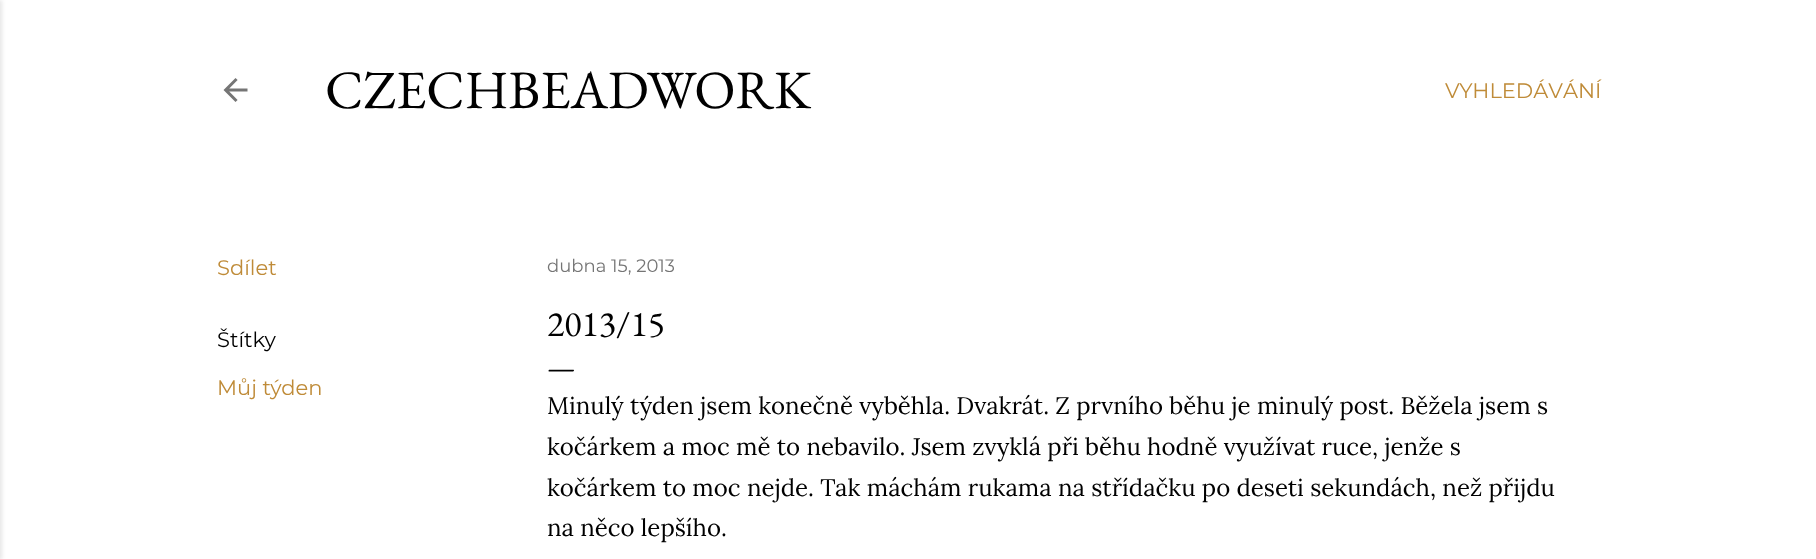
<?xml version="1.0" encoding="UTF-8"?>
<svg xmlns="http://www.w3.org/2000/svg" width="1816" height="559">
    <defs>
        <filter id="blur1" x="-50%" y="-200%" width="200%" height="500%"><feGaussianBlur stdDeviation="2"/></filter>
    </defs>
    <rect width="100%" height="100%" fill="#FFFFFF"/>
    <rect x="-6" y="0" width="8" height="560" fill="#000000" fill-opacity="0.1" filter="url(#blur1)"/>
    <image x="223" y="78" width="25" height="24" href="img_01.png"/>
    <text x="325" y="108" font-family="EB Garamond" font-size="54" fill="#000000">CZECHBEADWORK</text>
    <text x="1445" y="98" font-family="Montserrat" font-size="21" fill="#BF8B38">VYHLEDÁVÁNÍ</text>
    <text x="217" y="275" font-family="Montserrat" font-size="21" fill="#BF8B38">Sdílet</text>
    <text x="217" y="347" font-family="Montserrat" font-size="21" fill="#000000">Štítky</text>
    <text x="217" y="395" font-family="Montserrat" font-size="21" fill="#BF8B38">Můj týden</text>
    <text x="547" y="272" font-family="Montserrat" font-size="18" fill="#757575">dubna 15, 2013</text>
    <text x="547" y="336" font-family="EB Garamond" font-size="36" fill="#000000">2013/15</text>
    <text x="547" y="377" font-family="EB Garamond" font-size="30" fill="#000000">—</text>
    <text font-family="Lora" font-size="24" fill="#000000">
        <tspan x="547" y="414">Minulý týden jsem konečně vyběhla. Dvakrát. Z prvního běhu je minulý post. Běžela jsem s</tspan>
        <tspan x="547" y="455">kočárkem a moc mě to nebavilo. Jsem zvyklá při běhu hodně využívat ruce, jenže s</tspan>
        <tspan x="547" y="496">kočárkem to moc nejde. Tak máchám rukama na střídačku po deseti sekundách, než přijdu</tspan>
        <tspan x="547" y="536">na něco lepšího.</tspan>
    </text>
</svg>
